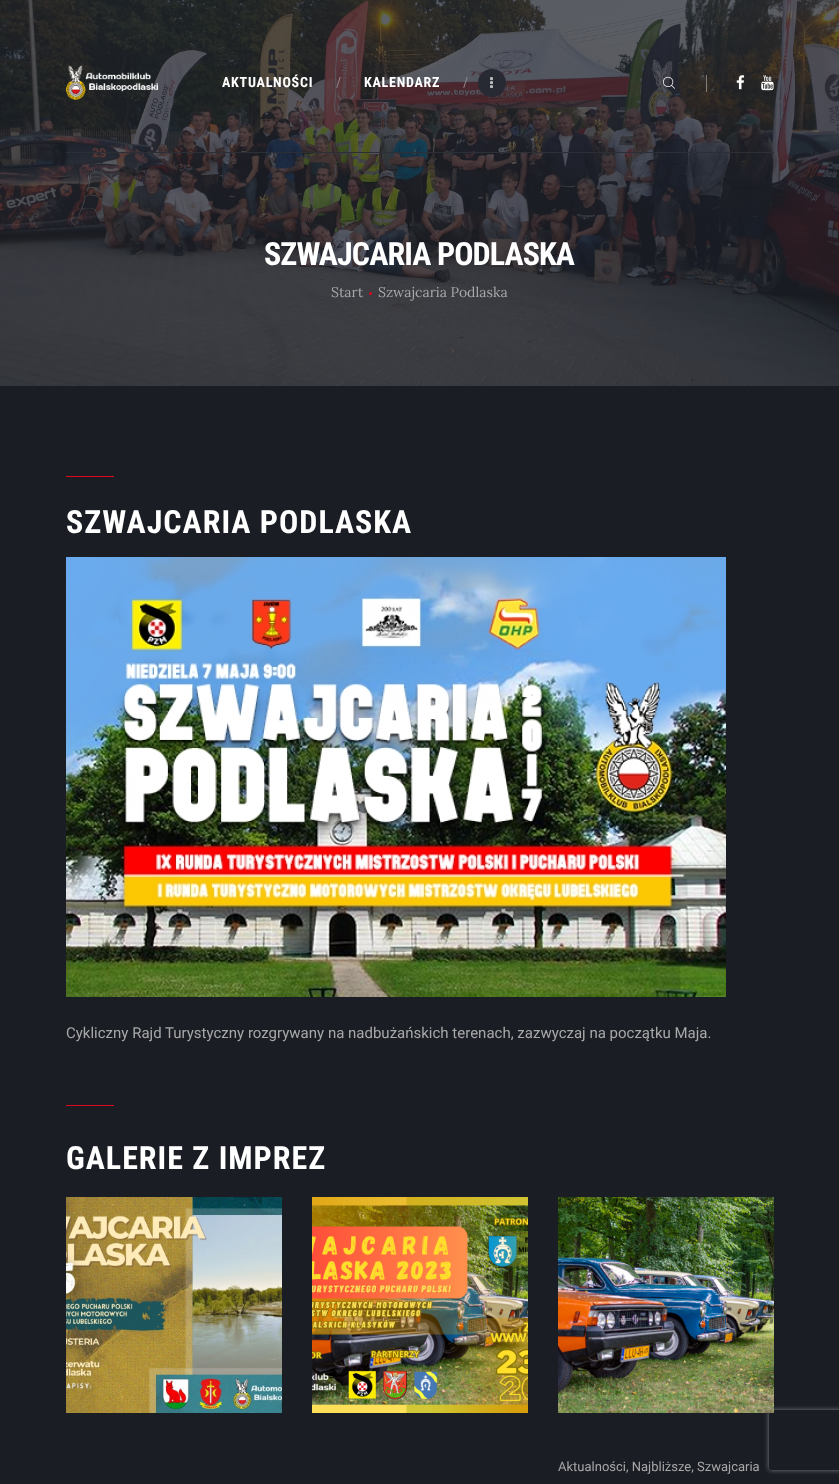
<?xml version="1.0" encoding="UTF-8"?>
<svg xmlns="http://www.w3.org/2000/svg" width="839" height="1484">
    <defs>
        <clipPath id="clip1"><path d="M 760 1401 H 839 V 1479 H 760 Z M 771 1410 H 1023 C 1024 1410 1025 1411 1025 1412 V 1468 C 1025 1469 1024 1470 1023 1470 H 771 C 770 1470 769 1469 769 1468 V 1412 C 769 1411 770 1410 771 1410 Z" clip-rule="evenodd"/></clipPath>
        <filter id="blur1" x="-50%" y="-200%" width="200%" height="500%"><feGaussianBlur stdDeviation="2.5"/></filter>
    </defs>
    <rect width="100%" height="100%" fill="#1A1D24"/>
    <image x="0" y="0" width="839" height="386" href="img_01.png"/>
    <image x="66" y="65" width="92" height="35" href="img_02.png"/>
    <text x="222" y="87" font-family="Roboto Condensed" font-size="14" font-weight="700" letter-spacing="0.75" fill="#FFFFFF">AKTUALNOŚCI</text>
    <text x="336" y="87" font-family="Roboto Condensed" font-size="14" fill="#90878B">/</text>
    <text x="364" y="87" font-family="Roboto Condensed" font-size="14" font-weight="700" letter-spacing="0.75" fill="#FFFFFF">KALENDARZ</text>
    <text x="463" y="87" font-family="Roboto Condensed" font-size="14" fill="#90878B">/</text>
    <circle cx="492" cy="83" r="14" fill="#272A33"/>
    <image x="490" y="77" width="3" height="12" href="img_03.png"/>
    <image x="663" y="76" width="12" height="13" href="img_04.png"/>
    <rect x="706" y="75" width="1" height="17" fill="#D1D1D1" fill-opacity="0.5"/>
    <image x="736" y="75" width="9" height="15" href="img_05.png"/>
    <image x="761" y="75" width="13" height="16" href="img_06.png"/>
    <rect x="66" y="152" width="708" height="1" fill="#2C2F35"/>
    <text x="264" y="265" font-family="Roboto Condensed" font-size="32" font-weight="700" letter-spacing="-0.9" fill="#FFFFFF">SZWAJCARIA PODLASKA</text>
    <text x="331" y="297" font-family="Lora" font-size="14" fill="#A8A8A8">Start</text>
    <circle cx="370.5" cy="293.5" r="1.5" fill="#E0041D"/>
    <text x="378" y="297" font-family="Lora" font-size="14" fill="#A8A8A8">Szwajcaria Podlaska</text>
    <rect x="66" y="476" width="48" height="1" fill="#E0041D"/>
    <text x="66" y="533" font-family="Roboto Condensed" font-size="32" font-weight="700" letter-spacing="1" fill="#FFFFFF">SZWAJCARIA PODLASKA</text>
    <image x="66" y="557" width="660" height="440" href="img_07.png"/>
    <text x="66" y="1038" font-family="Roboto" font-size="15" fill="#A8A8A8">Cykliczny Rajd Turystyczny rozgrywany na nadbużańskich terenach, zazwyczaj na początku Maja.</text>
    <rect x="66" y="1105" width="48" height="1" fill="#E0041D"/>
    <text x="66" y="1169" font-family="Roboto Condensed" font-size="32" font-weight="700" letter-spacing="1" fill="#FFFFFF">GALERIE Z IMPREZ</text>
    <image x="66" y="1197" width="216" height="216" href="img_08.png"/>
    <image x="312" y="1197" width="216" height="216" href="img_09.png"/>
    <image x="558" y="1197" width="216" height="216" href="img_10.png"/>
    <text x="558" y="1471" font-family="Roboto" font-size="13" fill="#A8A8A8">Aktualności, Najbliższe, Szwajcaria</text>
    <g clip-path="url(#clip1)">
        <rect x="769" y="1410" width="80" height="60" rx="2" fill="#808080" filter="url(#blur1)"/>
    </g>
</svg>
